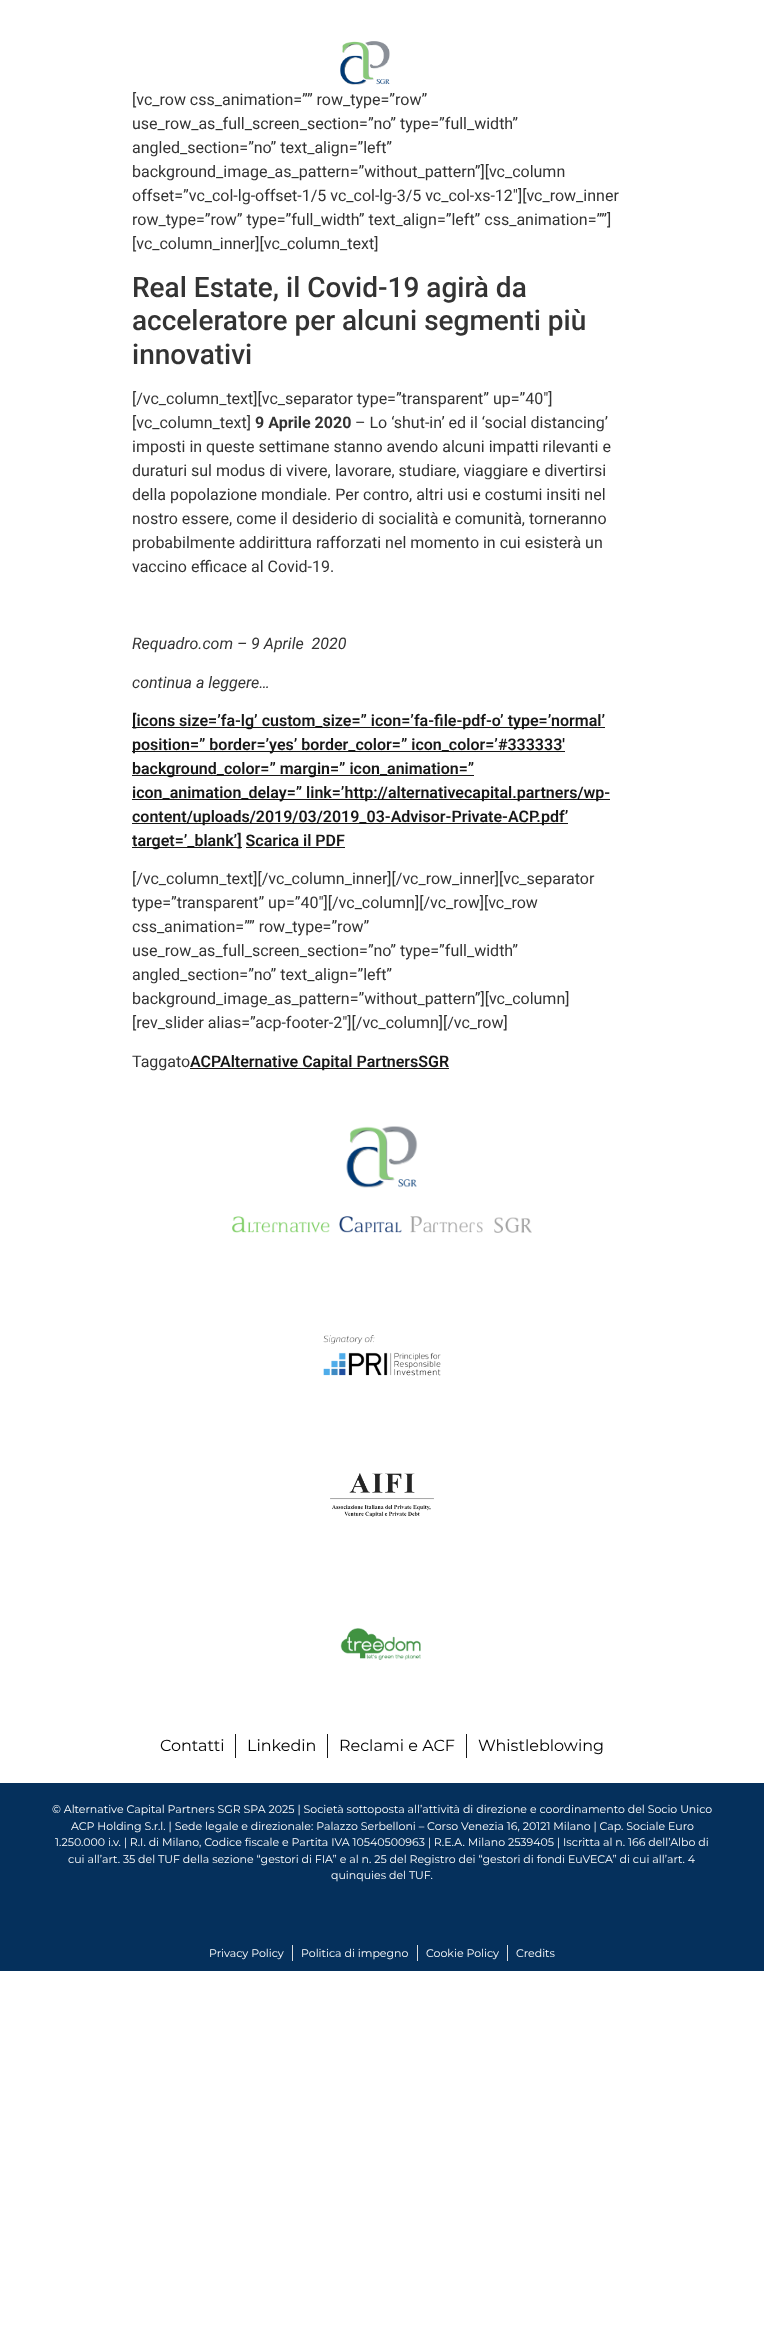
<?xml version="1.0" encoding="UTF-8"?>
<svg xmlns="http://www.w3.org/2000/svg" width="764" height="2344">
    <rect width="100%" height="100%" fill="#FFFFFF"/>
    <image x="340" y="41" width="50" height="44" href="img_01.png"/>
    <text font-family="Roboto" font-size="16" fill="#333333">
        <tspan x="132" y="105">[vc_row css_animation=”” row_type=”row”</tspan>
        <tspan x="132" y="129">use_row_as_full_screen_section=”no” type=”full_width”</tspan>
        <tspan x="132" y="153">angled_section=”no” text_align=”left”</tspan>
        <tspan x="132" y="177">background_image_as_pattern=”without_pattern”][vc_column</tspan>
        <tspan x="132" y="201">offset=”vc_col-lg-offset-1/5 vc_col-lg-3/5 vc_col-xs-12″][vc_row_inner</tspan>
        <tspan x="132" y="225">row_type=”row” type=”full_width” text_align=”left” css_animation=””]</tspan>
        <tspan x="132" y="249">[vc_column_inner][vc_column_text]</tspan>
    </text>
    <text font-family="Roboto" font-size="28" font-weight="500" fill="#333333">
        <tspan x="132" y="297">Real Estate, il Covid-19 agirà da</tspan>
        <tspan x="132" y="330">acceleratore per alcuni segmenti più</tspan>
        <tspan x="132" y="364">innovativi</tspan>
    </text>
    <text font-family="Roboto" font-size="16" fill="#333333">
        <tspan x="132" y="404">[/vc_column_text][vc_separator type=”transparent” up=”40″]</tspan>
        <tspan x="132" y="428">[vc_column_text]</tspan>
    </text>
    <text x="255" y="428" font-family="Roboto" font-size="16" font-weight="700" fill="#333333">9 Aprile 2020</text>
    <text x="355" y="428" font-family="Roboto" font-size="16" fill="#333333">– Lo ‘shut-in’ ed il ‘social distancing’</text>
    <text font-family="Roboto" font-size="16" fill="#333333">
        <tspan x="132" y="452">imposti in queste settimane stanno avendo alcuni impatti rilevanti e</tspan>
        <tspan x="132" y="476">duraturi sul modus di vivere, lavorare, studiare, viaggiare e divertirsi</tspan>
        <tspan x="132" y="500">della popolazione mondiale. Per contro, altri usi e costumi insiti nel</tspan>
        <tspan x="132" y="524">nostro essere, come il desiderio di socialità e comunità, torneranno</tspan>
        <tspan x="132" y="548">probabilmente addirittura rafforzati nel momento in cui esisterà un</tspan>
        <tspan x="132" y="572">vaccino efficace al Covid-19.</tspan>
    </text>
    <text x="132" y="649" font-family="Roboto" font-size="16" font-style="italic" fill="#333333" xml:space="preserve">Requadro.com – 9 Aprile  2020</text>
    <text x="132" y="688" font-family="Roboto" font-size="16" font-style="italic" fill="#333333">continua a leggere…</text>
    <rect x="132" y="727" width="473" height="1" fill="#171717"/>
    <text x="132" y="726" font-family="Roboto" font-size="16" font-weight="600" fill="#171717">[icons size=’fa-lg’ custom_size=” icon=’fa-file-pdf-o’ type=’normal’</text>
    <rect x="132" y="751" width="433" height="1" fill="#171717"/>
    <text x="132" y="750" font-family="Roboto" font-size="16" font-weight="600" fill="#171717">position=” border=’yes’ border_color=” icon_color=’#333333′</text>
    <rect x="132" y="775" width="342" height="1" fill="#171717"/>
    <text x="132" y="774" font-family="Roboto" font-size="16" font-weight="600" fill="#171717">background_color=” margin=” icon_animation=”</text>
    <rect x="132" y="799" width="478" height="1" fill="#171717"/>
    <text x="132" y="798" font-family="Roboto" font-size="16" font-weight="600" fill="#171717">icon_animation_delay=” link=’http://alternativecapital.partners/wp-</text>
    <rect x="132" y="823" width="436" height="1" fill="#171717"/>
    <text x="132" y="822" font-family="Roboto" font-size="16" font-weight="600" fill="#171717">content/uploads/2019/03/2019_03-Advisor-Private-ACP.pdf’</text>
    <rect x="132" y="847" width="110" height="1" fill="#171717"/>
    <text x="132" y="846" font-family="Roboto" font-size="16" font-weight="600" fill="#171717">target=’_blank’] Scarica il PDF</text>
    <rect x="246" y="847" width="99" height="1" fill="#171717"/>
    <text font-family="Roboto" font-size="16" fill="#333333">
        <tspan x="132" y="884">[/vc_column_text][/vc_column_inner][/vc_row_inner][vc_separator</tspan>
        <tspan x="132" y="908">type=”transparent” up=”40″][/vc_column][/vc_row][vc_row</tspan>
        <tspan x="132" y="932">css_animation=”” row_type=”row”</tspan>
        <tspan x="132" y="956">use_row_as_full_screen_section=”no” type=”full_width”</tspan>
        <tspan x="132" y="980">angled_section=”no” text_align=”left”</tspan>
        <tspan x="132" y="1004">background_image_as_pattern=”without_pattern”][vc_column]</tspan>
        <tspan x="132" y="1028">[rev_slider alias=”acp-footer-2″][/vc_column][/vc_row]</tspan>
    </text>
    <text x="132" y="1067" font-family="Roboto" font-size="16" fill="#333333">Taggato</text>
    <rect x="190" y="1068" width="259" height="1" fill="#171717"/>
    <text x="190" y="1067" font-family="Roboto" font-size="16" font-weight="600" fill="#171717">ACP</text>
    <text x="220" y="1067" font-family="Roboto" font-size="16" font-weight="600" fill="#171717">Alternative Capital PartnersSGR</text>
    <image x="346" y="1126" width="72" height="62" href="img_02.png"/>
    <image x="232" y="1216" width="300" height="17" href="img_03.png"/>
    <image x="323" y="1335" width="118" height="41" href="img_04.png"/>
    <image x="330" y="1473" width="104" height="44" href="img_05.png"/>
    <image x="340" y="1628" width="81" height="32" href="img_06.png"/>
    <text x="160" y="1751" font-family="Montserrat" font-size="16" fill="#000000">Contatti</text>
    <rect x="235" y="1734" width="1" height="24" fill="#171717"/>
    <text x="247" y="1751" font-family="Montserrat" font-size="16" fill="#000000">Linkedin</text>
    <rect x="327" y="1734" width="1" height="24" fill="#171717"/>
    <text x="339" y="1751" font-family="Montserrat" font-size="16" fill="#000000">Reclami e ACF</text>
    <rect x="466" y="1734" width="1" height="24" fill="#171717"/>
    <text x="478" y="1751" font-family="Montserrat" font-size="16" fill="#000000">Whistleblowing</text>
    <rect x="0" y="1783" width="764" height="188" fill="#05305C"/>
    <text x="52" y="1813" font-family="Montserrat" font-size="11" fill="#FFFFFF">© Alternative Capital Partners SGR SPA 2025 | Società sottoposta all’attività di direzione e coordinamento del Socio Unico</text>
    <text x="71" y="1830" font-family="Montserrat" font-size="11" fill="#FFFFFF">ACP Holding S.r.l. | Sede legale e direzionale: Palazzo Serbelloni – Corso Venezia 16, 20121 Milano | Cap. Sociale Euro</text>
    <text x="55" y="1846" font-family="Montserrat" font-size="11" fill="#FFFFFF">1.250.000 i.v. | R.I. di Milano, Codice fiscale e Partita IVA 10540500963 | R.E.A. Milano 2539405 | Iscritta al n. 166 dell’Albo di</text>
    <text x="68" y="1863" font-family="Montserrat" font-size="11" fill="#FFFFFF">cui all’art. 35 del TUF della sezione “gestori di FIA” e al n. 25 del Registro dei “gestori di fondi EuVECA” di cui all’art. 4</text>
    <text x="331" y="1879" font-family="Montserrat" font-size="11" fill="#FFFFFF">quinquies del TUF.</text>
    <text x="209" y="1957" font-family="Montserrat" font-size="11" fill="#FFFFFF">Privacy Policy</text>
    <rect x="292" y="1945" width="1" height="16" fill="#DDDDDD"/>
    <text x="301" y="1957" font-family="Montserrat" font-size="11" fill="#FFFFFF">Politica di impegno</text>
    <rect x="417" y="1945" width="1" height="16" fill="#DDDDDD"/>
    <text x="426" y="1957" font-family="Montserrat" font-size="11" fill="#FFFFFF">Cookie Policy</text>
    <rect x="507" y="1945" width="1" height="16" fill="#DDDDDD"/>
    <text x="516" y="1957" font-family="Montserrat" font-size="11" fill="#FFFFFF">Credits</text>
</svg>
